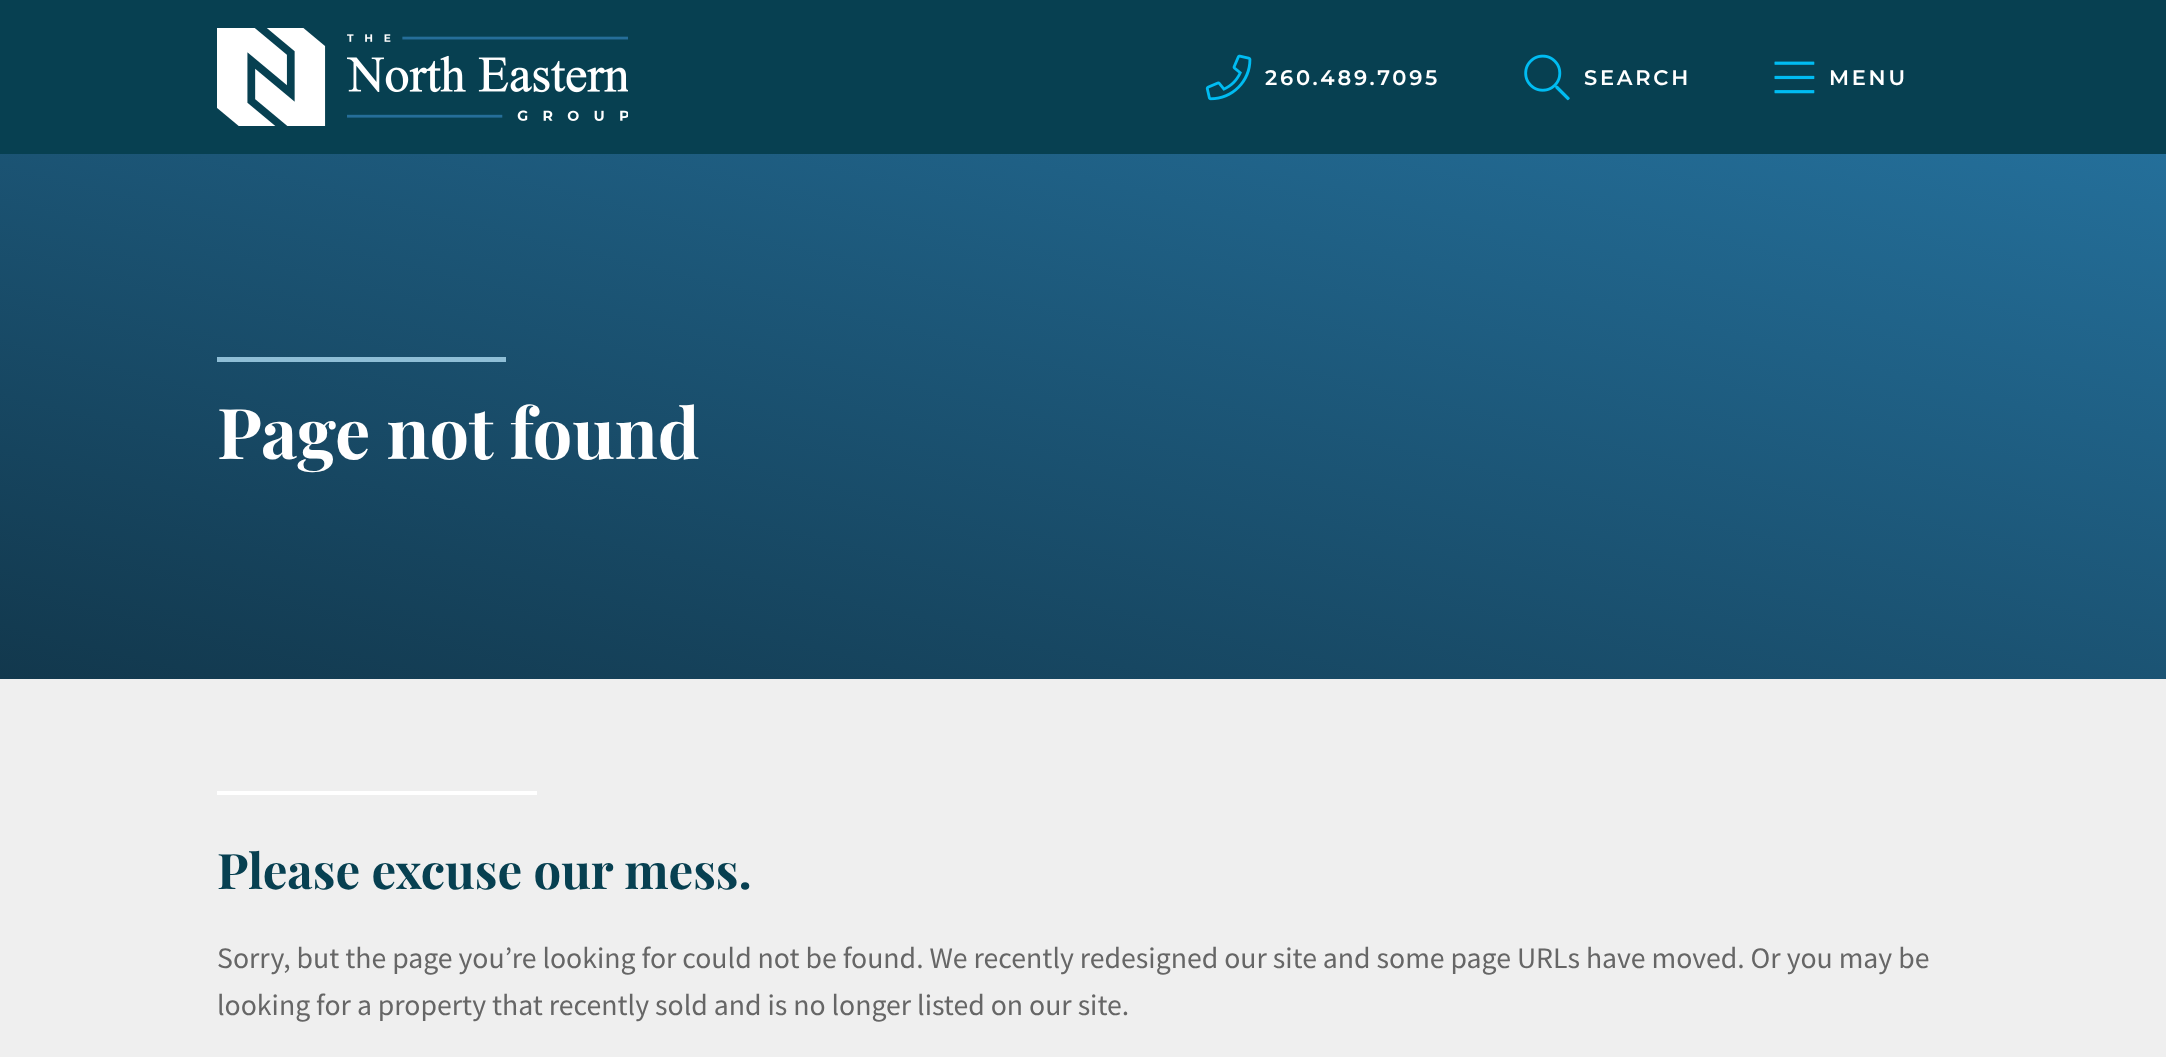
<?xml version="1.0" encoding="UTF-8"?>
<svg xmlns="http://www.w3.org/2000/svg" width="2166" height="1057">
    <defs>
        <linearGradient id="g1" gradientUnits="userSpaceOnUse" x1="963" y1="912" x2="1203" y2="-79"><stop offset="0" stop-color="#12384D"/><stop offset="1" stop-color="#246F9A"/></linearGradient>
        <linearGradient id="g2" gradientUnits="userSpaceOnUse" x1="963" y1="912" x2="1203" y2="-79"><stop offset="0" stop-color="#8DB9CF"/><stop offset="1" stop-color="#92C7E2"/></linearGradient>
    </defs>
    <rect width="100%" height="100%" fill="#FFFFFF"/>
    <rect x="0" y="0" width="2166" height="154" fill="#074051"/>
    <image x="217" y="28" width="411" height="98" href="img_01.png"/>
    <image x="1205" y="54" width="47" height="47" href="img_02.png"/>
    <text x="1265" y="85" font-family="Montserrat" font-size="21" font-weight="100" letter-spacing="2.75" fill="#FFFFFF">260.489.7095</text>
    <image x="1524" y="54" width="46" height="47" href="img_03.png"/>
    <text x="1584" y="85" font-family="Montserrat" font-size="21" font-weight="100" letter-spacing="2.75" fill="#FFFFFF">SEARCH</text>
    <image x="1774" y="61" width="41" height="33" href="img_04.png"/>
    <text x="1829" y="85" font-family="Montserrat" font-size="21" font-weight="100" letter-spacing="2.75" fill="#FFFFFF">MENU</text>
    <rect x="0" y="154" width="2166" height="525" fill="url(#g1)"/>
    <rect x="217" y="357" width="289" height="5" fill="url(#g2)"/>
    <text x="217" y="459" font-family="Playfair Display" font-size="70" font-weight="700" fill="#FFFFFF">Page not found</text>
    <rect x="0" y="679" width="2166" height="378" fill="#EFEFEF"/>
    <rect x="217" y="791" width="320" height="4" fill="#FFFFFF"/>
    <text x="217" y="889" font-family="Playfair Display" font-size="49" font-weight="700" fill="#074051">Please excuse our mess.</text>
    <text font-family="Source Sans Pro" font-size="29.75" fill="#666666">
        <tspan x="217" y="968">Sorry, but the page you’re looking for could not be found. We recently redesigned our site and some page URLs have moved. Or you may be</tspan>
        <tspan x="217" y="1015">looking for a property that recently sold and is no longer listed on our site.</tspan>
    </text>
</svg>
